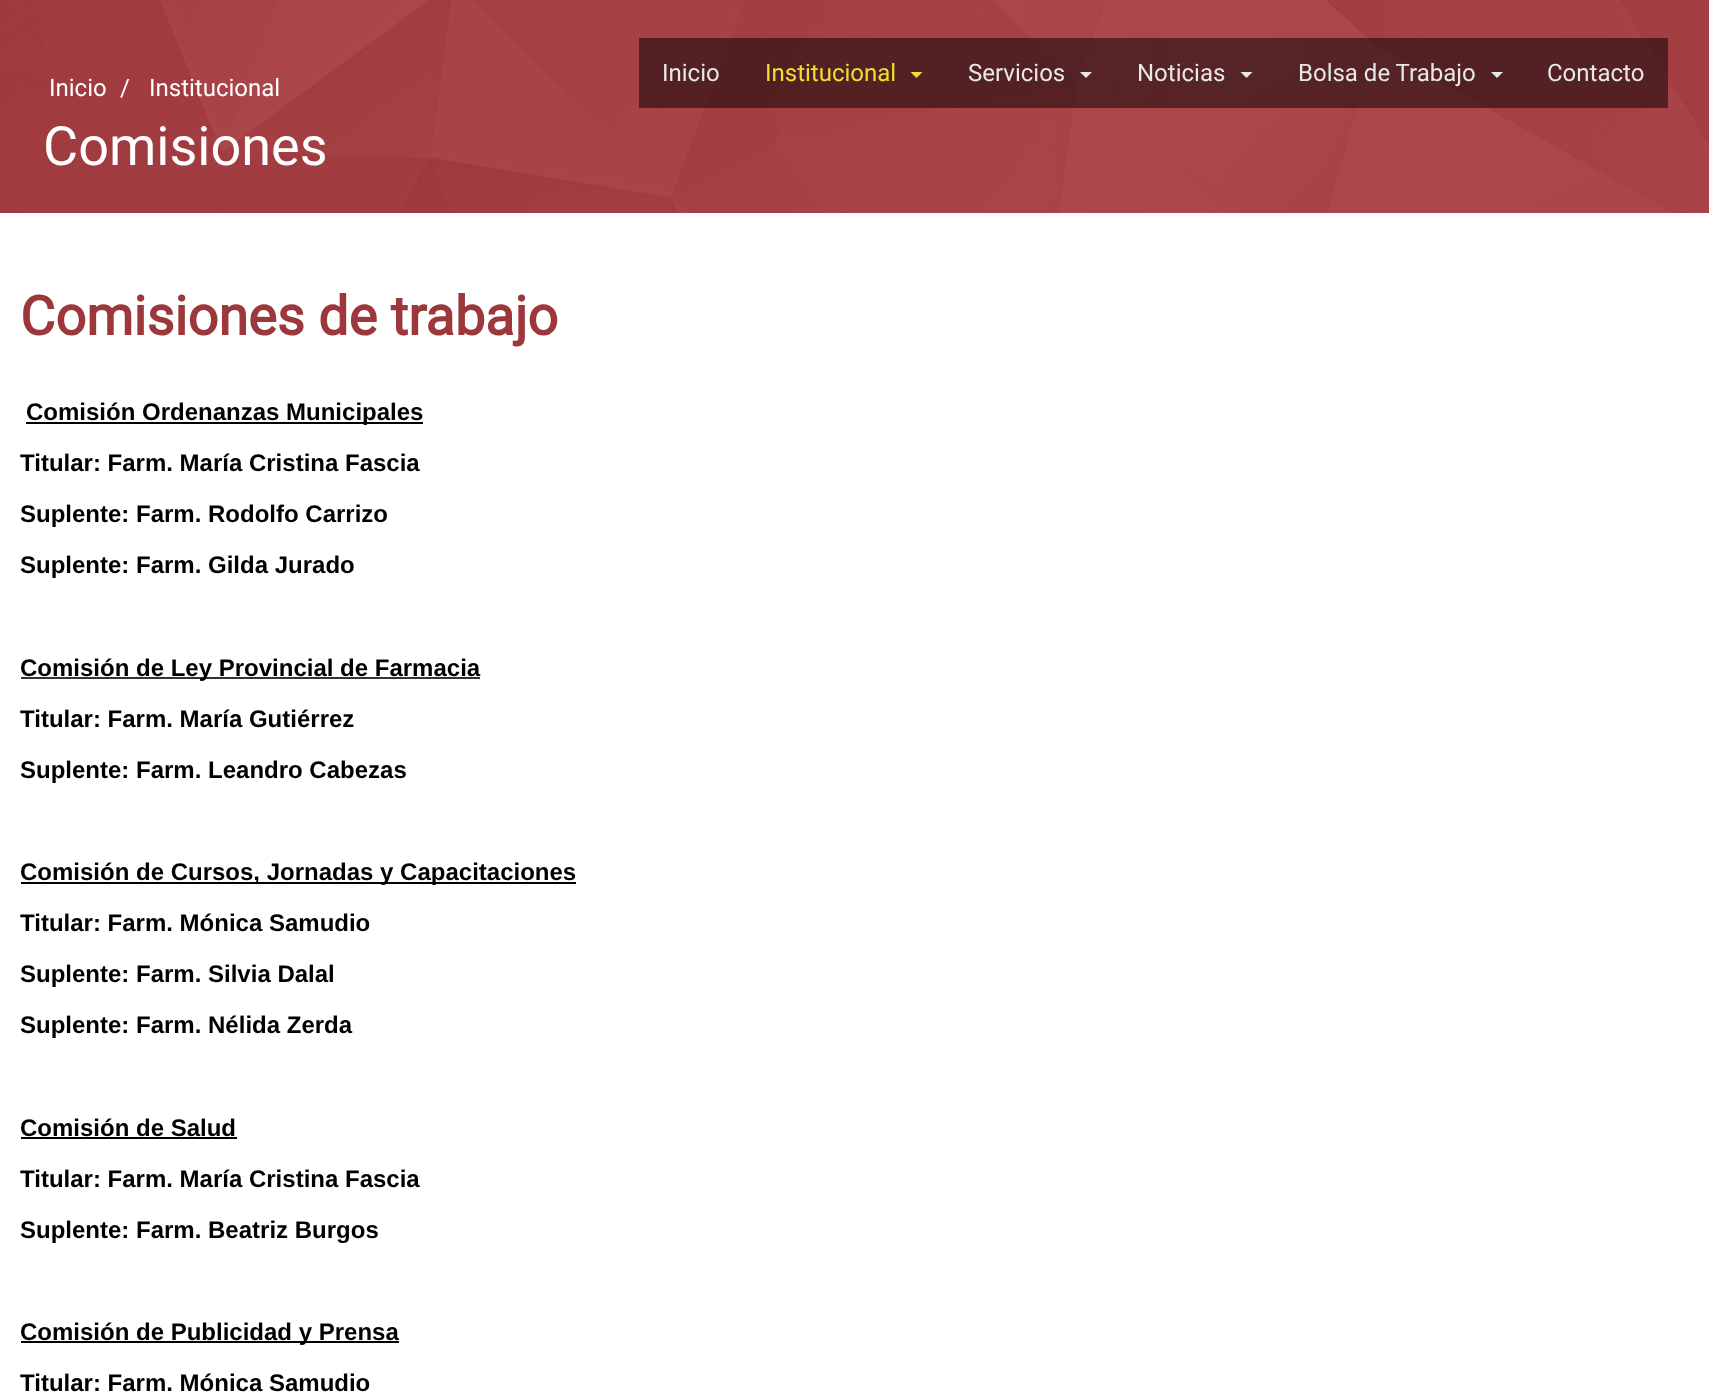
<?xml version="1.0" encoding="UTF-8"?>
<svg xmlns="http://www.w3.org/2000/svg" width="1709" height="1396">
    <rect width="100%" height="100%" fill="#FFFFFF"/>
    <image x="0" y="0" width="1709" height="213" href="img_01.png"/>
    <rect x="639" y="38" width="1029" height="70" fill="#000000" fill-opacity="0.5"/>
    <text x="662" y="81" font-family="Roboto" font-size="24" fill="#E8E8E8">Inicio</text>
    <text x="765" y="81" font-family="Roboto" font-size="24" fill="#ECE031">Institucional</text>
    <path d="M 910.5 72 H 922.5 L 916.5 78 Z" fill="#ECE031"/>
    <text x="968" y="81" font-family="Roboto" font-size="24" fill="#E8E8E8">Servicios</text>
    <path d="M 1080 72 H 1092 L 1086 78 Z" fill="#E8E8E8"/>
    <text x="1137" y="81" font-family="Roboto" font-size="24" fill="#E8E8E8">Noticias</text>
    <path d="M 1240.5 72 H 1252.5 L 1246.5 78 Z" fill="#E8E8E8"/>
    <text x="1298" y="81" font-family="Roboto" font-size="24" fill="#E8E8E8">Bolsa de Trabajo</text>
    <path d="M 1491 72 H 1503 L 1497 78 Z" fill="#E8E8E8"/>
    <text x="1547" y="81" font-family="Roboto" font-size="24" fill="#E8E8E8">Contacto</text>
    <text x="49" y="96" font-family="Roboto" font-size="24" fill="#FFFFFF">Inicio</text>
    <text x="120" y="96" font-family="Roboto" font-size="24" fill="#FFFFFF">/</text>
    <text x="149" y="96" font-family="Roboto" font-size="24" fill="#FFFFFF">Institucional</text>
    <text x="43" y="165" font-family="Roboto" font-size="54" fill="#FFFFFF">Comisiones</text>
    <text x="20" y="335" font-family="Roboto" font-size="54" font-weight="700" fill="#9C373C">Comisiones de trabajo</text>
    <rect x="26" y="422" width="397" height="2" fill="#000000"/>
    <text x="26" y="420" font-family="Liberation Sans" font-size="24" font-weight="700" fill="#000000">Comisión Ordenanzas Municipales</text>
    <text x="20" y="471" font-family="Liberation Sans" font-size="24" font-weight="700" fill="#000000">Titular: Farm. María Cristina Fascia</text>
    <text x="20" y="522" font-family="Liberation Sans" font-size="24" font-weight="700" fill="#000000">Suplente: Farm. Rodolfo Carrizo</text>
    <text x="20" y="573" font-family="Liberation Sans" font-size="24" font-weight="700" fill="#000000">Suplente: Farm. Gilda Jurado</text>
    <rect x="21" y="677" width="459" height="2" fill="#333333"/>
    <text x="20" y="676" font-family="Liberation Sans" font-size="24" font-weight="700" fill="#000000">Comisión de Ley Provincial de Farmacia</text>
    <text x="20" y="727" font-family="Liberation Sans" font-size="24" font-weight="700" fill="#000000">Titular: Farm. María Gutiérrez</text>
    <text x="20" y="778" font-family="Liberation Sans" font-size="24" font-weight="700" fill="#000000">Suplente: Farm. Leandro Cabezas</text>
    <rect x="21" y="882" width="555" height="2" fill="#000000"/>
    <text x="20" y="880" font-family="Liberation Sans" font-size="24" font-weight="700" fill="#000000">Comisión de Cursos, Jornadas y Capacitaciones</text>
    <text x="20" y="931" font-family="Liberation Sans" font-size="24" font-weight="700" fill="#000000">Titular: Farm. Mónica Samudio</text>
    <text x="20" y="982" font-family="Liberation Sans" font-size="24" font-weight="700" fill="#000000">Suplente: Farm. Silvia Dalal</text>
    <text x="20" y="1033" font-family="Liberation Sans" font-size="24" font-weight="700" fill="#000000">Suplente: Farm. Nélida Zerda</text>
    <text x="20" y="1136" font-family="Liberation Sans" font-size="24" font-weight="700" fill="#000000">Comisión de Salud</text>
    <rect x="21" y="1137" width="216" height="2" fill="#000000"/>
    <text x="20" y="1187" font-family="Liberation Sans" font-size="24" font-weight="700" fill="#000000">Titular: Farm. María Cristina Fascia</text>
    <text x="20" y="1238" font-family="Liberation Sans" font-size="24" font-weight="700" fill="#000000">Suplente: Farm. Beatriz Burgos</text>
    <rect x="21" y="1341" width="378" height="2" fill="#000000"/>
    <text x="20" y="1340" font-family="Liberation Sans" font-size="24" font-weight="700" fill="#000000">Comisión de Publicidad y Prensa</text>
    <text x="20" y="1391" font-family="Liberation Sans" font-size="24" font-weight="700" fill="#000000">Titular: Farm. Mónica Samudio</text>
</svg>
